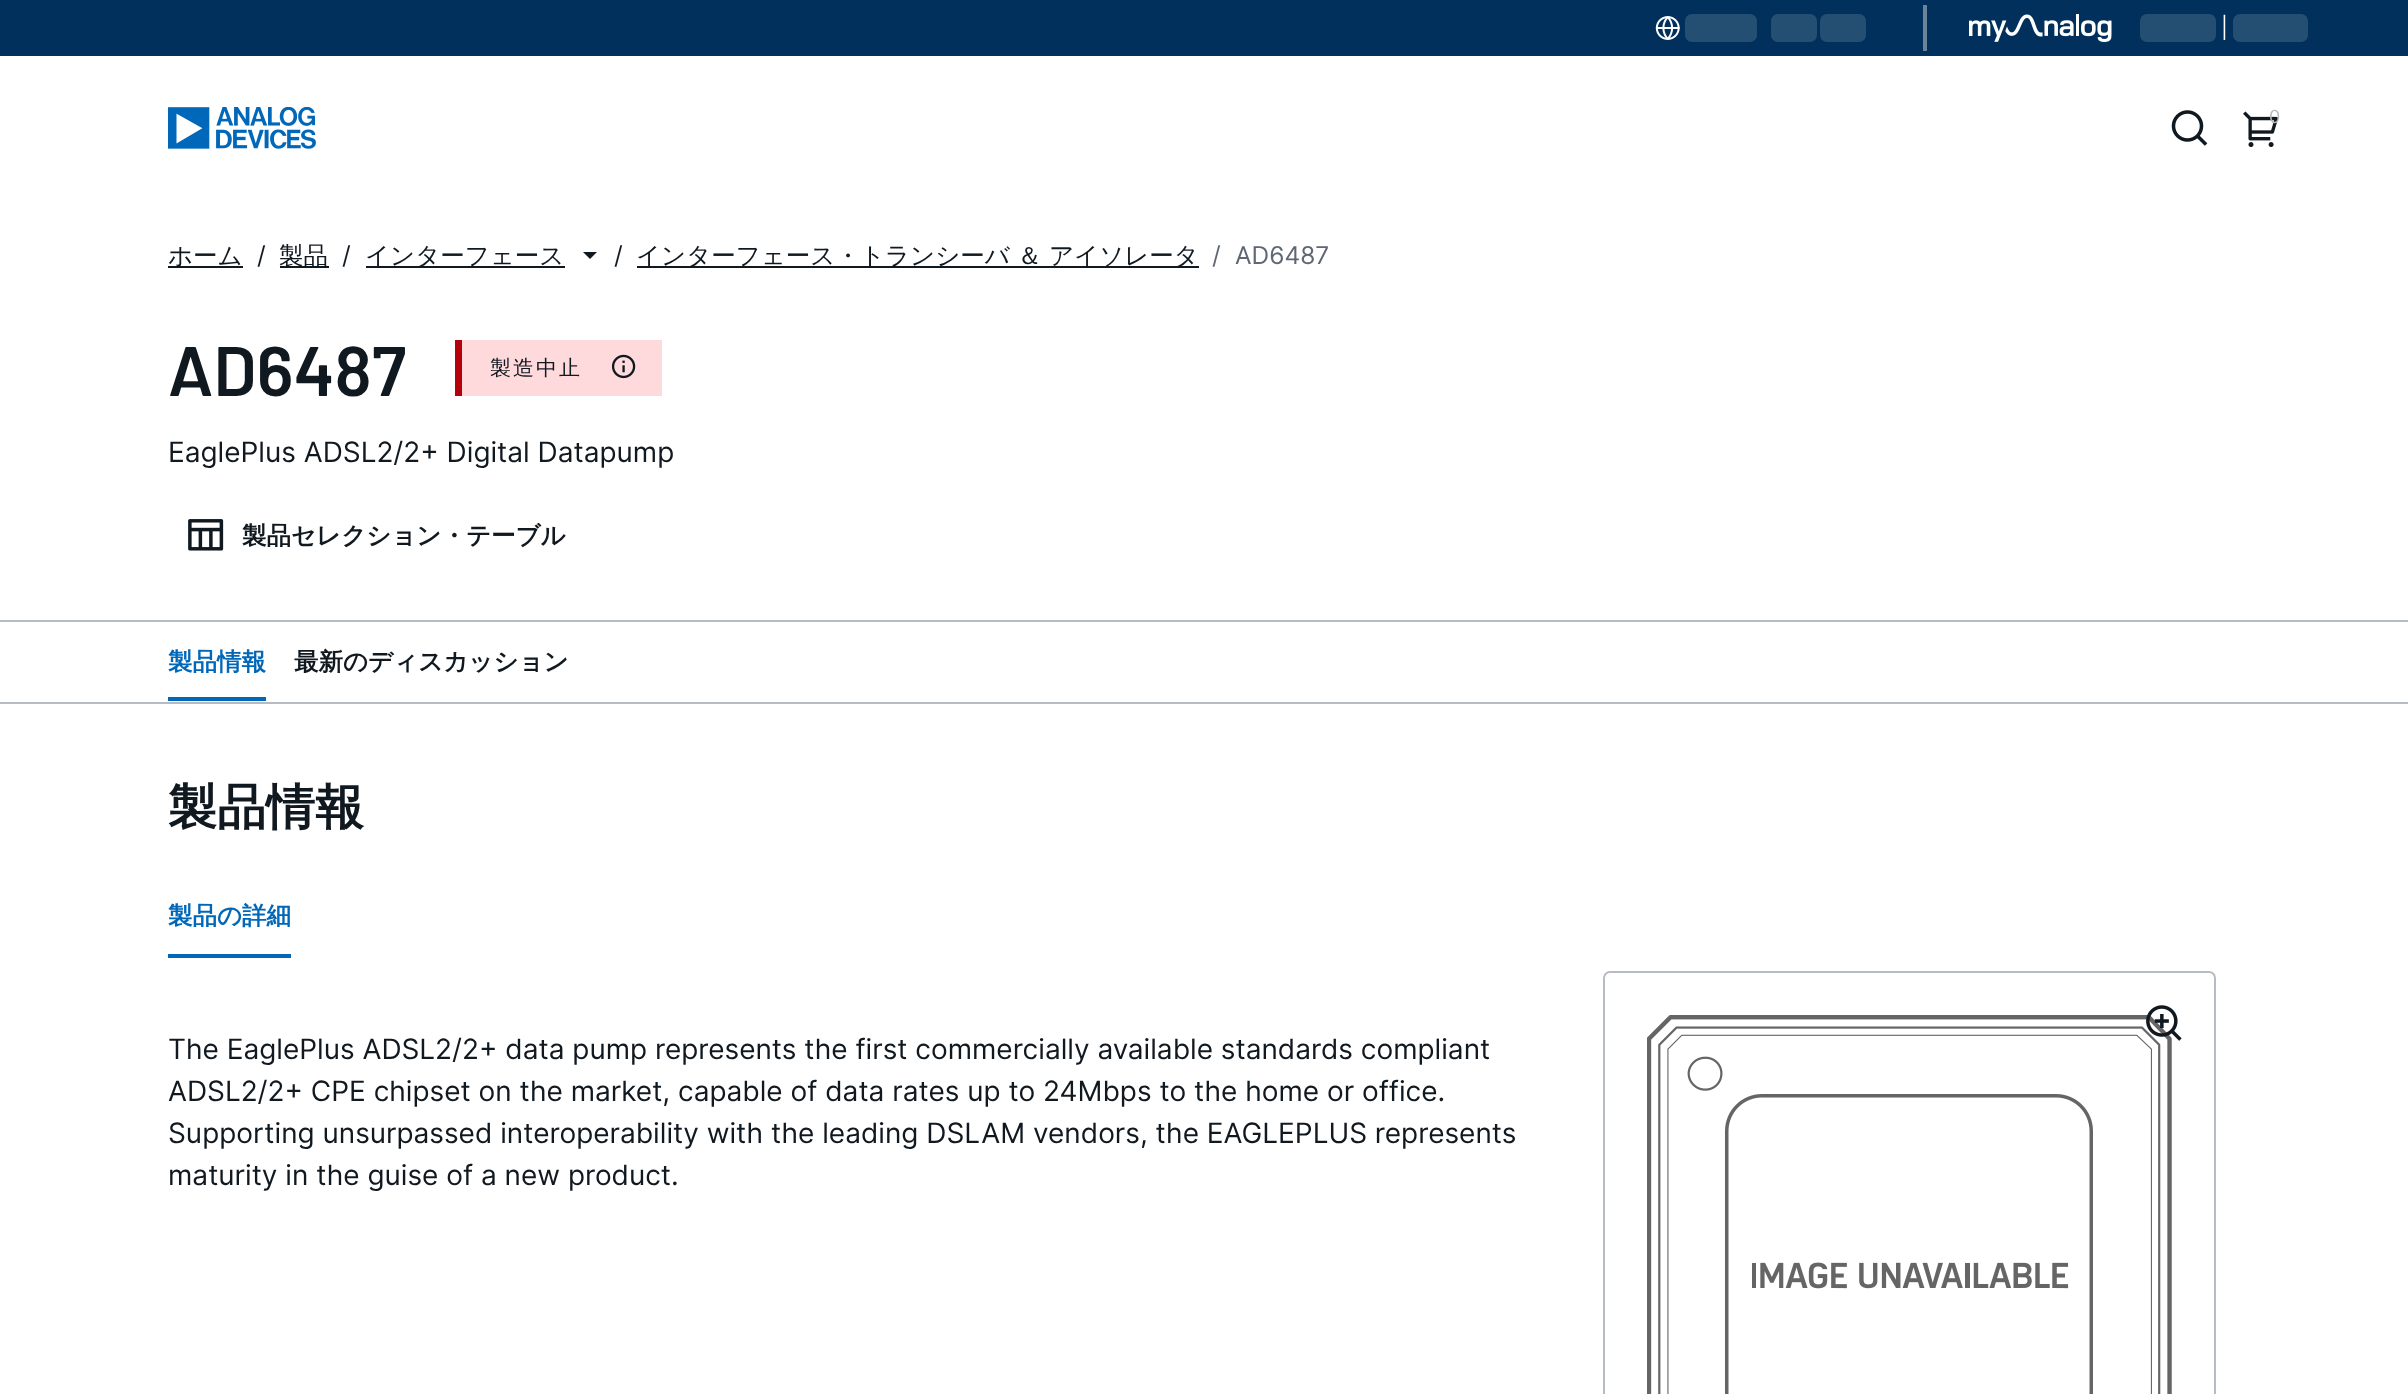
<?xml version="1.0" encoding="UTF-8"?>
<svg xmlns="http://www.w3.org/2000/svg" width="2408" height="1394">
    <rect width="100%" height="100%" fill="#FFFFFF"/>
    <rect x="0" y="0" width="2408" height="56" fill="#00305B"/>
    <image x="1655" y="16" width="25" height="24" href="img_01.png"/>
    <rect x="1685" y="14" width="72" height="28" rx="7" fill="#254E73"/>
    <rect x="1771" y="14" width="46" height="28" rx="7" fill="#254E73"/>
    <rect x="1820" y="14" width="46" height="28" rx="7" fill="#254E73"/>
    <rect x="1923" y="5" width="4" height="46" fill="#6B849C"/>
    <image x="1969" y="14" width="143" height="28" href="img_02.png"/>
    <rect x="2140" y="14" width="76" height="28" rx="7" fill="#254E73"/>
    <text x="2221" y="35" font-family="Inter" font-size="21" fill="#FFFFFF">|</text>
    <rect x="2233" y="14" width="75" height="28" rx="7" fill="#254E73"/>
    <image x="168" y="107" width="148" height="42" href="img_03.png"/>
    <image x="2171" y="110" width="37" height="36" href="img_04.png"/>
    <image x="2243" y="111" width="36" height="36" href="img_05.png"/>
    <text x="2269" y="123" font-family="Inter" font-size="18" fill="#B6B8BB">0</text>
    <rect x="168" y="266" width="75" height="2" fill="#101820"/>
    <text x="168" y="264" font-family="WenQuanYi Zen Hei" font-size="24.5" font-weight="500" fill="#101820">ホーム</text>
    <text x="257" y="264" font-family="Inter" font-size="24.5" fill="#101820">/</text>
    <rect x="280" y="266" width="49" height="2" fill="#101820"/>
    <text x="279" y="264" font-family="WenQuanYi Zen Hei" font-size="24.5" font-weight="500" fill="#101820">製品</text>
    <text x="342" y="264" font-family="Inter" font-size="24.5" fill="#101820">/</text>
    <rect x="366" y="266" width="199" height="2" fill="#101820"/>
    <text x="365" y="264" font-family="WenQuanYi Zen Hei" font-size="24.5" font-weight="500" fill="#101820">インターフェース</text>
    <path d="M 590 259 L 583 252 H 597 Z" fill="#101820"/>
    <text x="614" y="264" font-family="Inter" font-size="24.5" fill="#101820">/</text>
    <rect x="637" y="266" width="562" height="2" fill="#101820"/>
    <text x="636" y="264" font-family="WenQuanYi Zen Hei" font-size="24.5" font-weight="500" fill="#101820">インターフェース・トランシーバ ＆ アイソレータ</text>
    <text x="1212" y="264" font-family="Inter" font-size="24.5" fill="#5E6773">/</text>
    <text x="1235" y="264" font-family="Inter" font-size="24.5" fill="#5E6773">AD6487</text>
    <text x="168" y="396" font-family="Barlow" font-size="70" font-weight="600" fill="#101820">AD6487</text>
    <rect x="462" y="340" width="200" height="56" fill="#FFDADC"/>
    <rect x="455" y="340" width="7" height="56" fill="#B5000C"/>
    <text x="490" y="375" font-family="WenQuanYi Zen Hei" font-size="21" font-weight="500" letter-spacing="2" fill="#101820">製造中止</text>
    <image x="611" y="354" width="25" height="25" href="img_06.png"/>
    <text x="168" y="462" font-family="Inter" font-size="28" fill="#101820">EaglePlus ADSL2/2+ Digital Datapump</text>
    <image x="188" y="519" width="36" height="32" href="img_07.png"/>
    <text x="242" y="544" font-family="WenQuanYi Zen Hei" font-size="24.5" font-weight="700" fill="#101820">製品セレクション・テーブル</text>
    <rect x="0" y="620" width="2408" height="2" fill="#B7BBC3"/>
    <rect x="0" y="702" width="2408" height="2" fill="#B7BBC3"/>
    <rect x="168" y="697" width="98" height="4" fill="#0067B9"/>
    <text x="168" y="670" font-family="WenQuanYi Zen Hei" font-size="24.5" font-weight="700" fill="#0067B9">製品情報</text>
    <text x="294" y="670" font-family="WenQuanYi Zen Hei" font-size="24.5" font-weight="700" fill="#101820">最新のディスカッション</text>
    <text x="168" y="824" font-family="WenQuanYi Zen Hei" font-size="49" font-weight="700" fill="#101820">製品情報</text>
    <rect x="168" y="954" width="123" height="4" fill="#0067B9"/>
    <text x="168" y="924" font-family="WenQuanYi Zen Hei" font-size="24.5" font-weight="700" fill="#0067B9">製品の詳細</text>
    <text font-family="Inter" font-size="28" fill="#101820">
        <tspan x="168" y="1059">The EaglePlus ADSL2/2+ data pump represents the first commercially available standards compliant</tspan>
        <tspan x="168" y="1101">ADSL2/2+ CPE chipset on the market, capable of data rates up to 24Mbps to the home or office.</tspan>
        <tspan x="168" y="1143">Supporting unsurpassed interoperability with the leading DSLAM vendors, the EAGLEPLUS represents</tspan>
        <tspan x="168" y="1185">maturity in the guise of a new product.</tspan>
    </text>
    <rect x="1604" y="972" width="611" height="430" rx="6" fill="none" stroke="#B7BBC3" stroke-width="2"/>
    <image x="1647" y="1015" width="525" height="379" href="img_09.png"/>
    <image x="2146" y="1005" width="36" height="36" href="img_08.png"/>
</svg>
